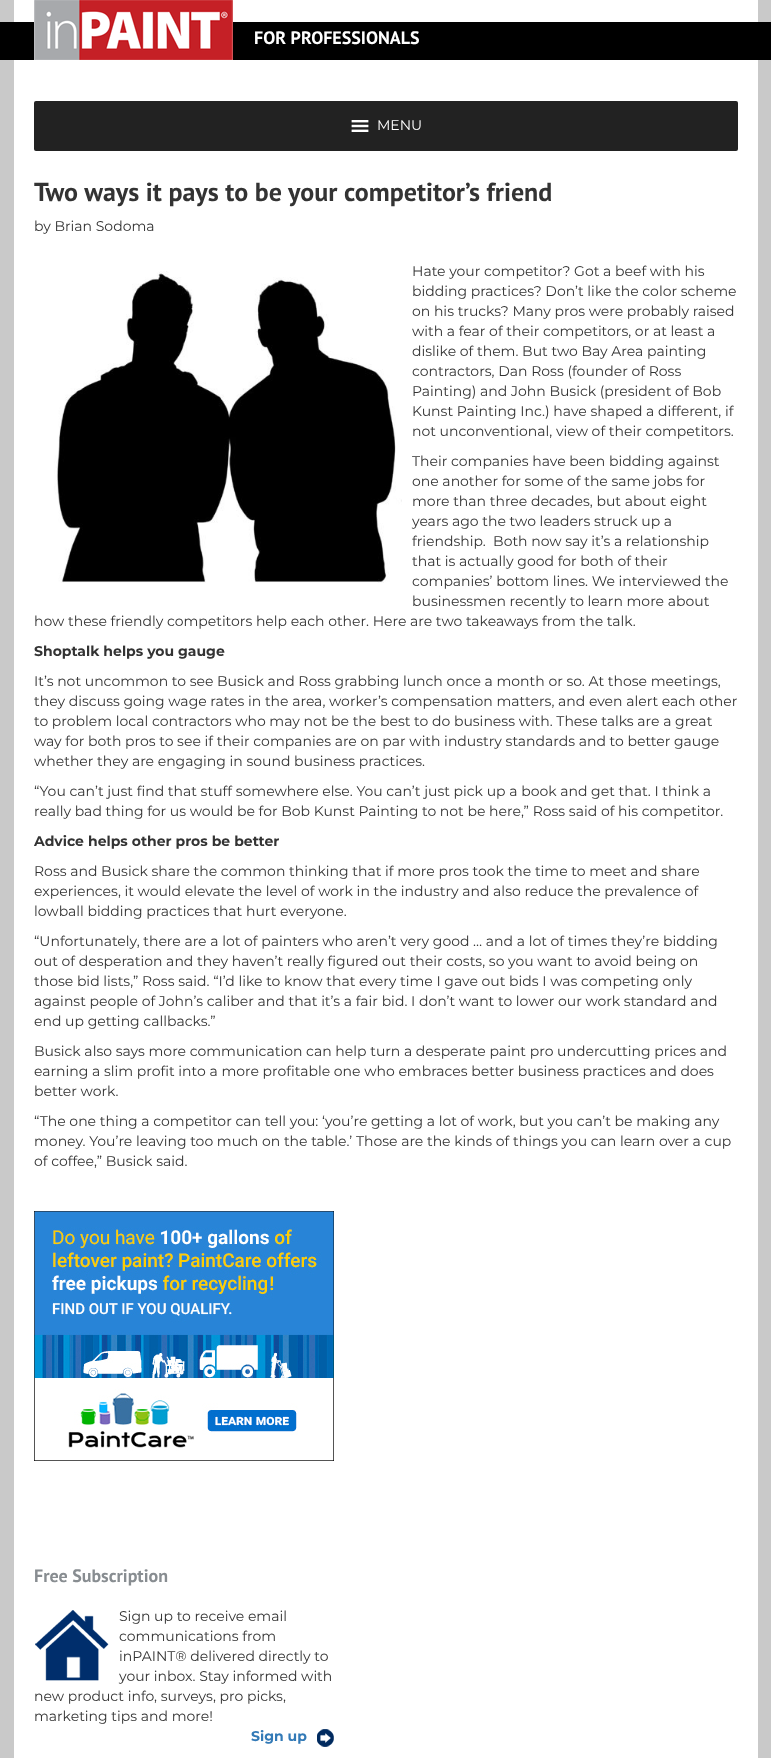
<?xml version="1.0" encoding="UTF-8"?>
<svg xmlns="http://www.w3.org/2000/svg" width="771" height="1758">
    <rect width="100%" height="100%" fill="#C9C9C9"/>
    <rect x="0" y="22" width="771" height="38" fill="#000000"/>
    <rect x="14" y="0" width="744" height="1758" fill="#FFFFFF"/>
    <rect x="14" y="22" width="744" height="38" fill="#000000"/>
    <image x="34" y="0" width="199" height="60" href="img_01.png"/>
    <text x="254" y="44" font-family="PT Sans" font-size="18" font-weight="700" fill="#FFFFFF">FOR PROFESSIONALS</text>
    <rect x="34" y="101" width="704" height="50" rx="2" fill="#222222"/>
    <image x="351" y="120" width="18" height="12" href="img_02.png"/>
    <text x="377" y="130" font-family="Montserrat" font-size="14" fill="#FFFFFF">MENU</text>
    <text x="34" y="201" font-family="PT Sans" font-size="26" font-weight="700" fill="#333333">Two ways it pays to be your competitor’s friend</text>
    <text x="34" y="231" font-family="Montserrat" font-size="14" fill="#333333">by Brian Sodoma</text>
    <image x="54" y="271" width="348" height="312" href="img_03.png"/>
    <text font-family="Montserrat" font-size="14" fill="#333333">
        <tspan x="412" y="276">Hate your competitor? Got a beef with his</tspan>
        <tspan x="412" y="296">bidding practices? Don’t like the color scheme</tspan>
        <tspan x="412" y="316">on his trucks? Many pros were probably raised</tspan>
        <tspan x="412" y="336">with a fear of their competitors, or at least a</tspan>
        <tspan x="412" y="356">dislike of them. But two Bay Area painting</tspan>
        <tspan x="412" y="376">contractors, Dan Ross (founder of Ross</tspan>
        <tspan x="412" y="396">Painting) and John Busick (president of Bob</tspan>
        <tspan x="412" y="416">Kunst Painting Inc.) have shaped a different, if</tspan>
        <tspan x="412" y="436">not unconventional, view of their competitors.</tspan>
    </text>
    <text font-family="Montserrat" font-size="14" fill="#333333" xml:space="preserve"><tspan x="412" y="466">Their companies have been bidding against</tspan><tspan x="412" y="486">one another for some of the same jobs for</tspan><tspan x="412" y="506">more than three decades, but about eight</tspan><tspan x="412" y="526">years ago the two leaders struck up a</tspan><tspan x="412" y="546">friendship.  Both now say it’s a relationship</tspan><tspan x="412" y="566">that is actually good for both of their</tspan><tspan x="412" y="586">companies’ bottom lines. We interviewed the</tspan><tspan x="412" y="606">businessmen recently to learn more about</tspan></text>
    <text x="34" y="626" font-family="Montserrat" font-size="14" fill="#333333">how these friendly competitors help each other. Here are two takeaways from the talk.</text>
    <text x="34" y="656" font-family="Montserrat" font-size="14" font-weight="700" fill="#333333">Shoptalk helps you gauge</text>
    <text font-family="Montserrat" font-size="14" fill="#333333">
        <tspan x="34" y="686">It’s not uncommon to see Busick and Ross grabbing lunch once a month or so. At those meetings,</tspan>
        <tspan x="34" y="706">they discuss going wage rates in the area, worker’s compensation matters, and even alert each other</tspan>
        <tspan x="34" y="726">to problem local contractors who may not be the best to do business with. These talks are a great</tspan>
        <tspan x="34" y="746">way for both pros to see if their companies are on par with industry standards and to better gauge</tspan>
        <tspan x="34" y="766">whether they are engaging in sound business practices.</tspan>
    </text>
    <text font-family="Montserrat" font-size="14" fill="#333333">
        <tspan x="34" y="796">“You can’t just find that stuff somewhere else. You can’t just pick up a book and get that. I think a</tspan>
        <tspan x="34" y="816">really bad thing for us would be for Bob Kunst Painting to not be here,” Ross said of his competitor.</tspan>
    </text>
    <text x="34" y="846" font-family="Montserrat" font-size="14" font-weight="700" fill="#333333">Advice helps other pros be better</text>
    <text font-family="Montserrat" font-size="14" fill="#333333">
        <tspan x="34" y="876">Ross and Busick share the common thinking that if more pros took the time to meet and share</tspan>
        <tspan x="34" y="896">experiences, it would elevate the level of work in the industry and also reduce the prevalence of</tspan>
        <tspan x="34" y="916">lowball bidding practices that hurt everyone.</tspan>
    </text>
    <text font-family="Montserrat" font-size="14" fill="#333333">
        <tspan x="34" y="946">“Unfortunately, there are a lot of painters who aren’t very good … and a lot of times they’re bidding</tspan>
        <tspan x="34" y="966">out of desperation and they haven’t really figured out their costs, so you want to avoid being on</tspan>
        <tspan x="34" y="986">those bid lists,” Ross said. “I’d like to know that every time I gave out bids I was competing only</tspan>
        <tspan x="34" y="1006">against people of John’s caliber and that it’s a fair bid. I don’t want to lower our work standard and</tspan>
        <tspan x="34" y="1026">end up getting callbacks.”</tspan>
    </text>
    <text font-family="Montserrat" font-size="14" fill="#333333">
        <tspan x="34" y="1056">Busick also says more communication can help turn a desperate paint pro undercutting prices and</tspan>
        <tspan x="34" y="1076">earning a slim profit into a more profitable one who embraces better business practices and does</tspan>
        <tspan x="34" y="1096">better work.</tspan>
    </text>
    <text font-family="Montserrat" font-size="14" fill="#333333">
        <tspan x="34" y="1126">“The one thing a competitor can tell you: ‘you’re getting a lot of work, but you can’t be making any</tspan>
        <tspan x="34" y="1146">money. You’re leaving too much on the table.’ Those are the kinds of things you can learn over a cup</tspan>
        <tspan x="34" y="1166">of coffee,” Busick said.</tspan>
    </text>
    <image x="34" y="1211" width="300" height="250" href="img_04.png"/>
    <text x="34" y="1582" font-family="PT Sans" font-size="18" font-weight="700" fill="#888D91">Free Subscription</text>
    <image x="35" y="1610" width="74" height="71" href="img_05.png"/>
    <text font-family="Montserrat" font-size="14" fill="#333333">
        <tspan x="119" y="1621">Sign up to receive email</tspan>
        <tspan x="119" y="1641">communications from</tspan>
        <tspan x="119" y="1661">inPAINT® delivered directly to</tspan>
        <tspan x="119" y="1681">your inbox. Stay informed with</tspan>
    </text>
    <text font-family="Montserrat" font-size="14" fill="#333333">
        <tspan x="34" y="1701">new product info, surveys, pro picks,</tspan>
        <tspan x="34" y="1721">marketing tips and more!</tspan>
    </text>
    <text x="251" y="1741" font-family="Montserrat" font-size="14" font-weight="700" fill="#337AB7">Sign up</text>
    <image x="317" y="1729" width="17" height="18" href="img_06.png"/>
</svg>
